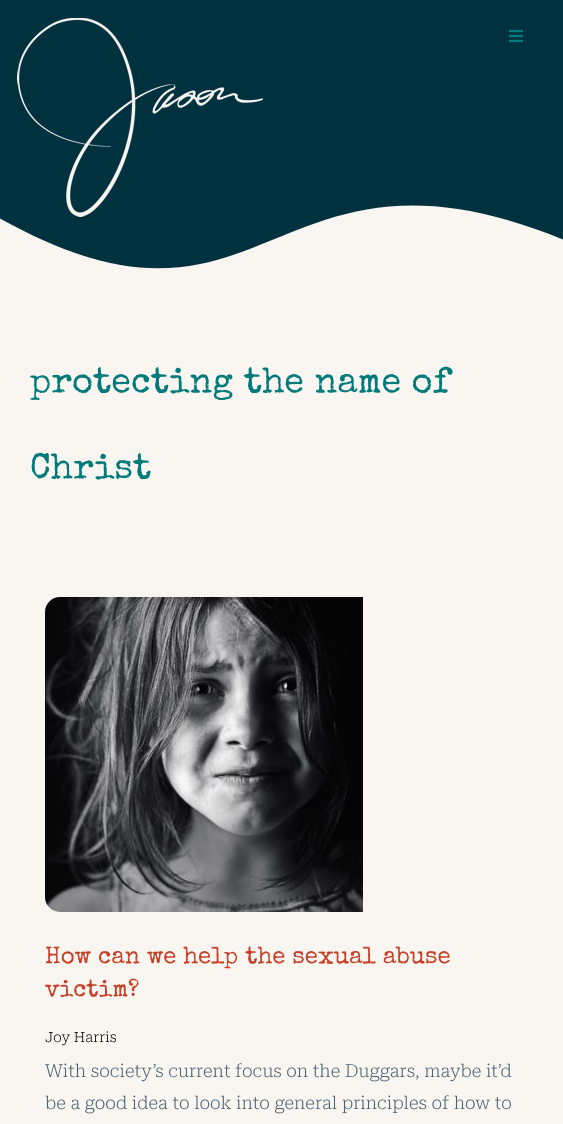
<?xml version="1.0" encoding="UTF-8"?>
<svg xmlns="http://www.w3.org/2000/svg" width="563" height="1124">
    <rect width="100%" height="100%" fill="#F9F5F0"/>
    <rect x="0" y="0" width="563" height="167" fill="#00313F"/>
    <path d="M -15 210 C 275 381 262 107 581 247 L 563 167 H 0 Z" fill="#00313F"/>
    <image x="17" y="18" width="246" height="199" href="img_01.png"/>
    <image x="509" y="29" width="14" height="14" href="img_02.png"/>
    <text x="30" y="392" font-family="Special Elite" font-size="36" fill="#007A7A">protecting the name of</text>
    <text x="30" y="478" font-family="Special Elite" font-size="36" fill="#007A7A">Christ</text>
    <image x="45" y="597" width="318" height="315" href="img_03.png"/>
    <text font-family="Special Elite" font-size="24" fill="#C54027">
        <tspan x="45" y="963">How can we help the sexual abuse</tspan>
        <tspan x="45" y="996">victim?</tspan>
    </text>
    <text x="45" y="1042" font-family="Roboto Serif" font-size="14" font-weight="200" fill="#000000">Joy Harris</text>
    <text font-family="'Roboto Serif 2'" font-size="18" font-weight="200" fill="#486072">
        <tspan x="45" y="1077">With society’s current focus on the Duggars, maybe it’d</tspan>
        <tspan x="45" y="1109">be a good idea to look into general principles of how to</tspan>
    </text>
</svg>
